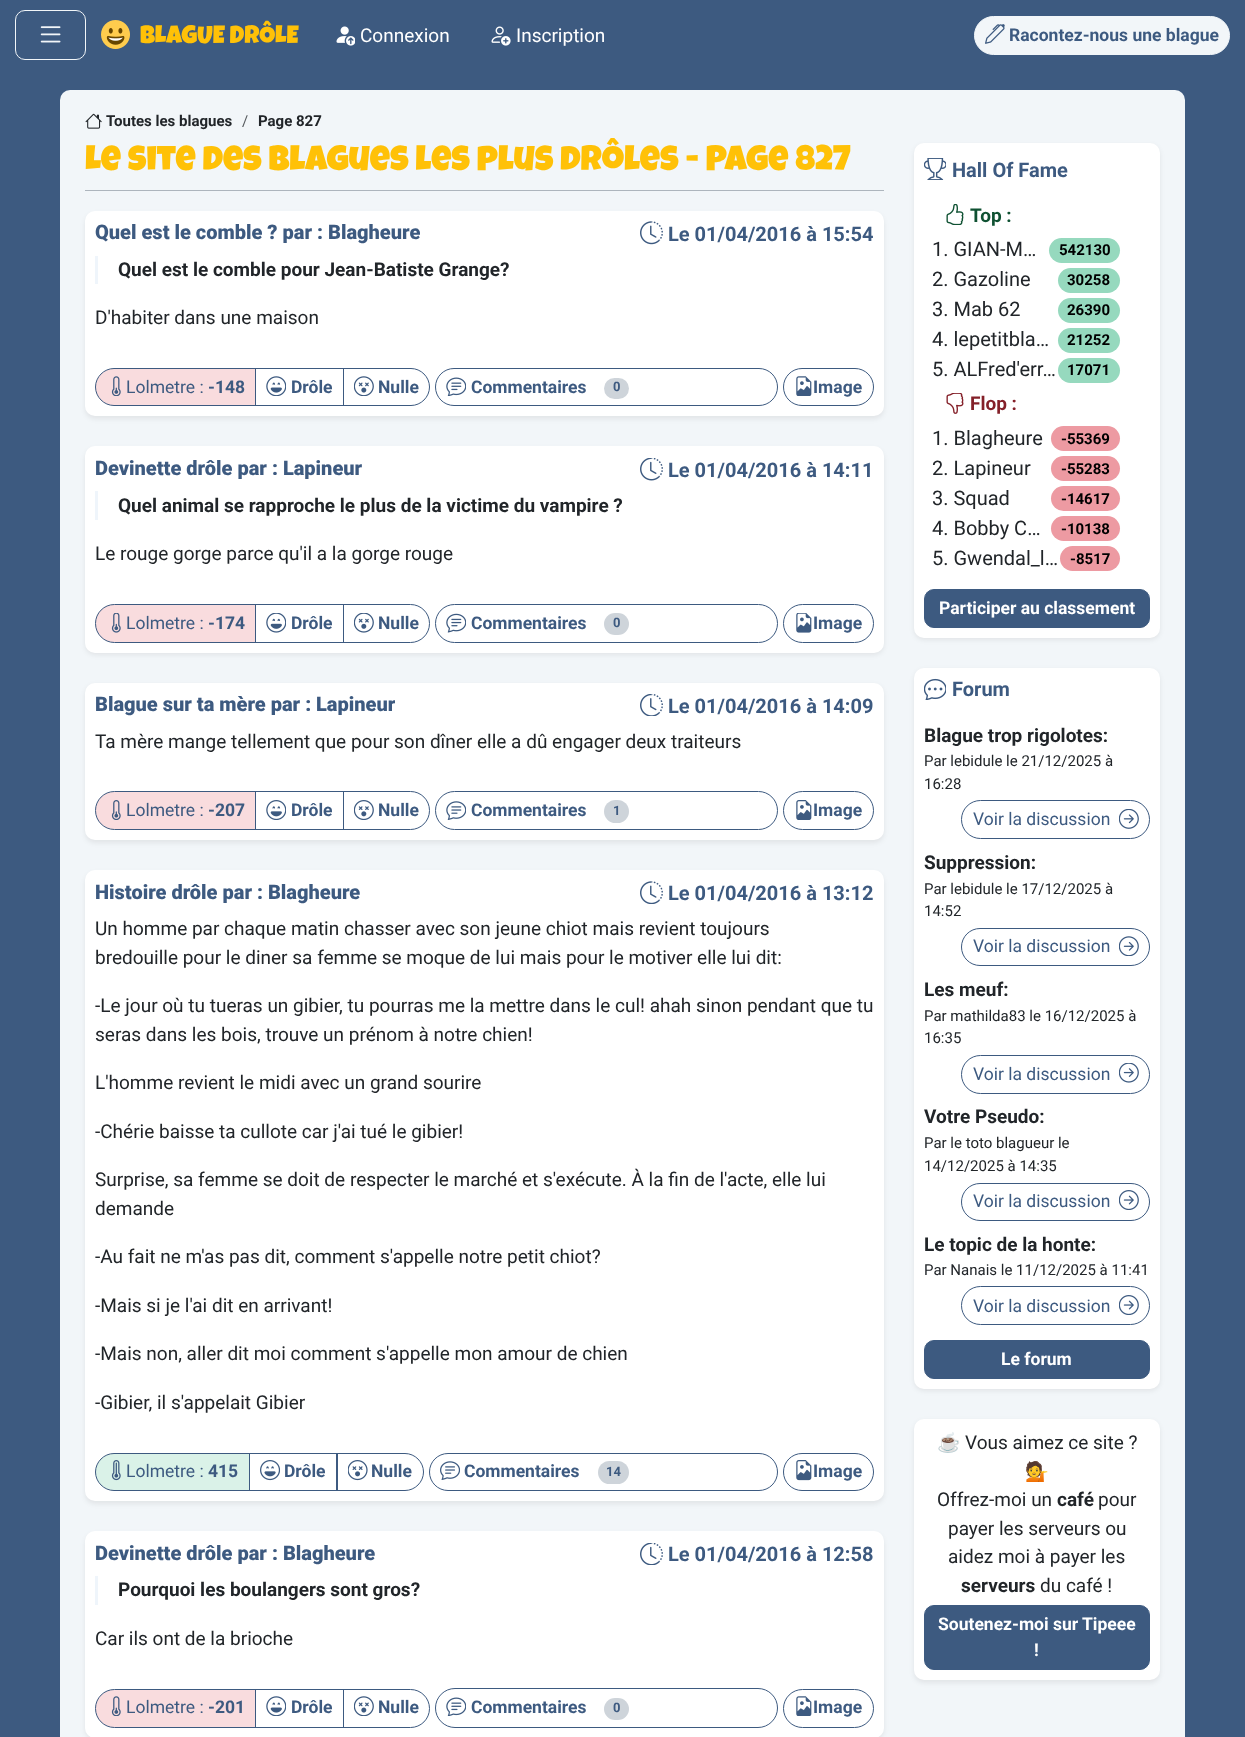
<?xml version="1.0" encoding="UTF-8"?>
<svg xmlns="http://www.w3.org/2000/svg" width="1245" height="1737">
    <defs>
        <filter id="blur1" x="-50%" y="-200%" width="200%" height="500%"><feGaussianBlur stdDeviation="2.5"/></filter>
        <clipPath id="clip1"><rect x="95" y="693" width="300" height="25"/></clipPath>
    </defs>
    <rect width="100%" height="100%" fill="#3D5A80"/>
    <rect x="15.5" y="10.5" width="70" height="49" rx="9.5" fill="none" stroke="#F2F6F9"/>
    <image x="40" y="26" width="21" height="17" href="img_01.png"/>
    <image x="101" y="20" width="29" height="29" href="img_02.png"/>
    <text x="140" y="43" font-family="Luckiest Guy" font-size="25" font-style="italic" fill="#FFC107">BLAGUE DRÔLE</text>
    <image x="336" y="26" width="19" height="20" href="img_03.png"/>
    <text x="360" y="42" font-family="Roboto" font-size="19" fill="#FFFFFF">Connexion</text>
    <image x="491" y="26" width="20" height="20" href="img_04.png"/>
    <text x="516" y="42" font-family="Roboto" font-size="19" fill="#FFFFFF">Inscription</text>
    <rect x="974.5" y="16.5" width="255" height="38" rx="19" fill="#F2F6F9" stroke="#F2F6F9"/>
    <image x="985" y="24" width="20" height="20" href="img_05.png"/>
    <text x="1009" y="41" font-family="Roboto" font-size="17.5" font-weight="700" fill="#3D5A80">Racontez-nous une blague</text>
    <rect x="60" y="90" width="1125" height="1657" rx="10" fill="#F2F6F9"/>
    <image x="85" y="113" width="17" height="16" href="img_06.png"/>
    <text x="106" y="126" font-family="Roboto" font-size="15" font-weight="700" fill="#212529">Toutes les blagues</text>
    <text x="242" y="126" font-family="Roboto" font-size="15" fill="#55595D">/</text>
    <text x="258" y="126" font-family="Roboto" font-size="15" font-weight="700" fill="#212529">Page 827</text>
    <rect x="85" y="190" width="799" height="1" fill="#ADB5BD"/>
    <text x="85" y="170" font-family="Luckiest Guy" font-size="35" font-style="italic" fill="#FFC107">Le site des blagues les plus drôles - Page 827</text>
    <rect x="85" y="214" width="799" height="205" rx="10" fill="#000000" fill-opacity="0.07" filter="url(#blur1)"/>
    <rect x="85" y="211" width="799" height="205" rx="10" fill="#FFFFFF"/>
    <text x="95" y="239" font-family="Roboto" font-size="20" font-weight="900" fill="#3D5A80">Quel est le comble ? par : Blagheure</text>
    <image x="640" y="221" width="23" height="24" href="img_07.png"/>
    <text x="668" y="241" font-family="Roboto" font-size="20" font-weight="700" fill="#3D5A80">Le 01/04/2016 à 15:54</text>
    <rect x="95" y="256" width="3" height="28" fill="#EFF5FB"/>
    <text x="118" y="276" font-family="Roboto" font-size="19" font-weight="700" fill="#212529">Quel est le comble pour Jean-Batiste Grange?</text>
    <text x="95" y="324" font-family="Roboto" font-size="19" fill="#212529">D'habiter dans une maison</text>
    <path d="M 114 368.5 H 255.5 V 405.5 H 114 C 104 405.5 95.5 397 95.5 387 C 95.5 377 104 368.5 114 368.5 Z" fill="#F9DCDE" stroke="#3D5A80"/>
    <image x="111" y="376" width="10" height="20" href="img_08.png"/>
    <text x="126" y="393" font-family="Roboto" font-size="17.5" fill="#3D5A80">Lolmetre :</text>
    <text x="208" y="393" font-family="Roboto" font-size="17.5" font-weight="700" fill="#3D5A80">-148</text>
    <rect x="255.5" y="368.5" width="88" height="37" fill="none" stroke="#3D5A80"/>
    <image x="266" y="376" width="20" height="20" href="img_09.png"/>
    <text x="291" y="393" font-family="Roboto" font-size="17.5" font-weight="700" fill="#3D5A80">Drôle</text>
    <path d="M 343.5 368.5 H 411 C 421 368.5 429.5 377 429.5 387 C 429.5 397 421 405.5 411 405.5 H 343.5 Z" fill="none" stroke="#3D5A80"/>
    <image x="354" y="376" width="20" height="20" href="img_10.png"/>
    <text x="378" y="393" font-family="Roboto" font-size="17.5" font-weight="700" fill="#3D5A80">Nulle</text>
    <rect x="435.5" y="368.5" width="342" height="37" rx="18.5" fill="none" stroke="#3D5A80"/>
    <image x="446" y="377" width="20" height="19" href="img_11.png"/>
    <text x="471" y="393" font-family="Roboto" font-size="17.5" font-weight="700" fill="#3D5A80">Commentaires</text>
    <rect x="604" y="378" width="25" height="21" rx="10.5" fill="#CED4DA"/>
    <text x="613" y="391" font-family="Roboto" font-size="13" font-weight="700" fill="#3D5A80">0</text>
    <rect x="783.5" y="368.5" width="90" height="37" rx="18.5" fill="none" stroke="#3D5A80"/>
    <image x="796" y="376" width="16" height="20" href="img_12.png"/>
    <text x="813" y="393" font-family="Roboto" font-size="17.5" font-weight="700" fill="#3D5A80">Image</text>
    <rect x="85" y="449" width="799" height="206" rx="10" fill="#000000" fill-opacity="0.07" filter="url(#blur1)"/>
    <rect x="85" y="446" width="799" height="207" rx="10" fill="#FFFFFF"/>
    <text x="95" y="475" font-family="Roboto" font-size="20" font-weight="900" fill="#3D5A80">Devinette drôle par : Lapineur</text>
    <image x="640" y="458" width="23" height="23" href="img_13.png"/>
    <text x="668" y="477" font-family="Roboto" font-size="20" font-weight="700" fill="#3D5A80">Le 01/04/2016 à 14:11</text>
    <rect x="95" y="491" width="3" height="29" fill="#EFF5FB"/>
    <text x="118" y="512" font-family="Roboto" font-size="19" font-weight="700" fill="#212529">Quel animal se rapproche le plus de la victime du vampire ?</text>
    <text x="95" y="560" font-family="Roboto" font-size="19" fill="#212529">Le rouge gorge parce qu'il a la gorge rouge</text>
    <path d="M 114.5 604.5 H 255.5 V 642.5 H 114.5 C 104 642.5 95.5 634 95.5 623.5 C 95.5 613 104 604.5 114.5 604.5 Z" fill="#F9DCDE" stroke="#3D5A80"/>
    <image x="111" y="613" width="10" height="20" href="img_14.png"/>
    <text x="126" y="629" font-family="Roboto" font-size="17.5" fill="#3D5A80">Lolmetre :</text>
    <text x="208" y="629" font-family="Roboto" font-size="17.5" font-weight="700" fill="#3D5A80">-174</text>
    <rect x="255.5" y="604.5" width="88" height="38" fill="none" stroke="#3D5A80"/>
    <image x="266" y="613" width="20" height="20" href="img_15.png"/>
    <text x="291" y="629" font-family="Roboto" font-size="17.5" font-weight="700" fill="#3D5A80">Drôle</text>
    <path d="M 343.5 604.5 H 410.5 C 421 604.5 429.5 613 429.5 623.5 C 429.5 634 421 642.5 410.5 642.5 H 343.5 Z" fill="none" stroke="#3D5A80"/>
    <image x="354" y="613" width="20" height="20" href="img_16.png"/>
    <text x="378" y="629" font-family="Roboto" font-size="17.5" font-weight="700" fill="#3D5A80">Nulle</text>
    <rect x="435.5" y="604.5" width="342" height="38" rx="19" fill="none" stroke="#3D5A80"/>
    <image x="446" y="613" width="20" height="20" href="img_17.png"/>
    <text x="471" y="629" font-family="Roboto" font-size="17.5" font-weight="700" fill="#3D5A80">Commentaires</text>
    <rect x="604" y="613" width="25" height="22" rx="11" fill="#CED4DA"/>
    <text x="613" y="627" font-family="Roboto" font-size="13" font-weight="700" fill="#3D5A80">0</text>
    <rect x="783.5" y="604.5" width="90" height="38" rx="19" fill="none" stroke="#3D5A80"/>
    <image x="796" y="613" width="16" height="20" href="img_18.png"/>
    <text x="813" y="629" font-family="Roboto" font-size="17.5" font-weight="700" fill="#3D5A80">Image</text>
    <rect x="85" y="685" width="799" height="158" rx="10" fill="#000000" fill-opacity="0.07" filter="url(#blur1)"/>
    <rect x="85" y="683" width="799" height="157" rx="10" fill="#FFFFFF"/>
    <text x="95" y="711" font-family="Roboto" font-size="20" font-weight="900" fill="#3D5A80">Blague sur ta mère par :</text>
    <g clip-path="url(#clip1)">
        <text x="316" y="711" font-family="Roboto" font-size="20" font-weight="900" fill="#3D5A80">Lapineur</text>
    </g>
    <image x="640" y="694" width="23" height="22" href="img_19.png"/>
    <text x="668" y="713" font-family="Roboto" font-size="20" font-weight="700" fill="#3D5A80">Le 01/04/2016 à 14:09</text>
    <text x="95" y="748" font-family="Roboto" font-size="19" fill="#212529">Ta mère mange tellement que pour son dîner elle a dû engager deux traiteurs</text>
    <path d="M 114.5 791.5 H 255.5 V 829.5 H 114.5 C 104 829.5 95.5 821 95.5 810.5 C 95.5 800 104 791.5 114.5 791.5 Z" fill="#F9DCDE" stroke="#3D5A80"/>
    <image x="111" y="800" width="10" height="20" href="img_20.png"/>
    <text x="126" y="816" font-family="Roboto" font-size="17.5" fill="#3D5A80">Lolmetre :</text>
    <text x="208" y="816" font-family="Roboto" font-size="17.5" font-weight="700" fill="#3D5A80">-207</text>
    <rect x="255.5" y="791.5" width="88" height="38" fill="none" stroke="#3D5A80"/>
    <image x="266" y="800" width="20" height="20" href="img_21.png"/>
    <text x="291" y="816" font-family="Roboto" font-size="17.5" font-weight="700" fill="#3D5A80">Drôle</text>
    <path d="M 343.5 791.5 H 410.5 C 421 791.5 429.5 800 429.5 810.5 C 429.5 821 421 829.5 410.5 829.5 H 343.5 Z" fill="none" stroke="#3D5A80"/>
    <image x="354" y="800" width="20" height="20" href="img_22.png"/>
    <text x="378" y="816" font-family="Roboto" font-size="17.5" font-weight="700" fill="#3D5A80">Nulle</text>
    <rect x="435.5" y="791.5" width="342" height="38" rx="19" fill="none" stroke="#3D5A80"/>
    <image x="446" y="801" width="20" height="19" href="img_23.png"/>
    <text x="471" y="816" font-family="Roboto" font-size="17.5" font-weight="700" fill="#3D5A80">Commentaires</text>
    <rect x="604" y="800" width="25" height="23" rx="11.5" fill="#CED4DA"/>
    <text x="613" y="815" font-family="Roboto" font-size="13" font-weight="700" fill="#3D5A80">1</text>
    <rect x="783.5" y="791.5" width="90" height="38" rx="19" fill="none" stroke="#3D5A80"/>
    <image x="796" y="800" width="16" height="20" href="img_24.png"/>
    <text x="813" y="816" font-family="Roboto" font-size="17.5" font-weight="700" fill="#3D5A80">Image</text>
    <rect x="85" y="873" width="799" height="631" rx="10" fill="#000000" fill-opacity="0.07" filter="url(#blur1)"/>
    <rect x="85" y="870" width="799" height="631" rx="10" fill="#FFFFFF"/>
    <text x="95" y="899" font-family="Roboto" font-size="20" font-weight="900" fill="#3D5A80">Histoire drôle par : Blagheure</text>
    <image x="640" y="881" width="23" height="23" href="img_25.png"/>
    <text x="668" y="900" font-family="Roboto" font-size="20" font-weight="700" fill="#3D5A80">Le 01/04/2016 à 13:12</text>
    <text font-family="Roboto" font-size="19" fill="#212529">
        <tspan x="95" y="935">Un homme par chaque matin chasser avec son jeune chiot mais revient toujours</tspan>
        <tspan x="95" y="964">bredouille pour le diner sa femme se moque de lui mais pour le motiver elle lui dit:</tspan>
    </text>
    <text font-family="Roboto" font-size="19" fill="#212529">
        <tspan x="95" y="1012">-Le jour où tu tueras un gibier, tu pourras me la mettre dans le cul! ahah sinon pendant que tu</tspan>
        <tspan x="95" y="1041">seras dans les bois, trouve un prénom à notre chien!</tspan>
    </text>
    <text x="95" y="1089" font-family="Roboto" font-size="19" fill="#212529">L'homme revient le midi avec un grand sourire</text>
    <text x="95" y="1138" font-family="Roboto" font-size="19" fill="#212529">-Chérie baisse ta cullote car j'ai tué le gibier!</text>
    <text font-family="Roboto" font-size="19" fill="#212529">
        <tspan x="95" y="1186">Surprise, sa femme se doit de respecter le marché et s'exécute. À la fin de l'acte, elle lui</tspan>
        <tspan x="95" y="1215">demande</tspan>
    </text>
    <text x="95" y="1263" font-family="Roboto" font-size="19" fill="#212529">-Au fait ne m'as pas dit, comment s'appelle notre petit chiot?</text>
    <text x="95" y="1312" font-family="Roboto" font-size="19" fill="#212529">-Mais si je l'ai dit en arrivant!</text>
    <text x="95" y="1360" font-family="Roboto" font-size="19" fill="#212529">-Mais non, aller dit moi comment s'appelle mon amour de chien</text>
    <text x="95" y="1409" font-family="Roboto" font-size="19" fill="#212529">-Gibier, il s'appelait Gibier</text>
    <path d="M 114 1453.5 H 249.5 V 1490.5 H 114 C 104 1490.5 95.5 1482 95.5 1472 C 95.5 1462 104 1453.5 114 1453.5 Z" fill="#DAF2E8" stroke="#3D5A80"/>
    <image x="111" y="1460" width="10" height="21" href="img_26.png"/>
    <text x="126" y="1477" font-family="Roboto" font-size="17.5" fill="#3D5A80">Lolmetre :</text>
    <text x="208" y="1477" font-family="Roboto" font-size="17.5" font-weight="700" fill="#3D5A80">415</text>
    <rect x="249.5" y="1453.5" width="88" height="37" fill="none" stroke="#3D5A80"/>
    <image x="260" y="1460" width="20" height="21" href="img_27.png"/>
    <text x="284" y="1477" font-family="Roboto" font-size="17.5" font-weight="700" fill="#3D5A80">Drôle</text>
    <path d="M 336.5 1453.5 H 405 C 415 1453.5 423.5 1462 423.5 1472 C 423.5 1482 415 1490.5 405 1490.5 H 336.5 Z" fill="none" stroke="#3D5A80"/>
    <image x="348" y="1460" width="20" height="21" href="img_28.png"/>
    <text x="371" y="1477" font-family="Roboto" font-size="17.5" font-weight="700" fill="#3D5A80">Nulle</text>
    <rect x="429.5" y="1453.5" width="348" height="37" rx="18.5" fill="none" stroke="#3D5A80"/>
    <image x="440" y="1461" width="20" height="19" href="img_29.png"/>
    <text x="464" y="1477" font-family="Roboto" font-size="17.5" font-weight="700" fill="#3D5A80">Commentaires</text>
    <rect x="598" y="1461" width="31" height="23" rx="11.5" fill="#CED4DA"/>
    <text x="606" y="1476" font-family="Roboto" font-size="13" font-weight="700" fill="#3D5A80">14</text>
    <rect x="783.5" y="1453.5" width="90" height="37" rx="18.5" fill="none" stroke="#3D5A80"/>
    <image x="796" y="1460" width="16" height="21" href="img_30.png"/>
    <text x="813" y="1477" font-family="Roboto" font-size="17.5" font-weight="700" fill="#3D5A80">Image</text>
    <rect x="85" y="1534" width="799" height="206" rx="10" fill="#000000" fill-opacity="0.07" filter="url(#blur1)"/>
    <rect x="85" y="1531" width="799" height="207" rx="10" fill="#FFFFFF"/>
    <text x="95" y="1560" font-family="Roboto" font-size="20" font-weight="900" fill="#3D5A80">Devinette drôle par : Blagheure</text>
    <image x="640" y="1543" width="23" height="22" href="img_31.png"/>
    <text x="668" y="1561" font-family="Roboto" font-size="20" font-weight="700" fill="#3D5A80">Le 01/04/2016 à 12:58</text>
    <rect x="95" y="1576" width="3" height="29" fill="#EFF5FB"/>
    <text x="118" y="1596" font-family="Roboto" font-size="19" font-weight="700" fill="#212529">Pourquoi les boulangers sont gros?</text>
    <text x="95" y="1645" font-family="Roboto" font-size="19" fill="#212529">Car ils ont de la brioche</text>
    <path d="M 114.5 1689.5 H 255.5 V 1727.5 H 114.5 C 104 1727.5 95.5 1719 95.5 1708.5 C 95.5 1698 104 1689.5 114.5 1689.5 Z" fill="#F9DCDE" stroke="#3D5A80"/>
    <image x="111" y="1696" width="10" height="20" href="img_08.png"/>
    <text x="126" y="1713" font-family="Roboto" font-size="17.5" fill="#3D5A80">Lolmetre :</text>
    <text x="208" y="1713" font-family="Roboto" font-size="17.5" font-weight="700" fill="#3D5A80">-201</text>
    <rect x="255.5" y="1689.5" width="88" height="38" fill="none" stroke="#3D5A80"/>
    <image x="266" y="1696" width="20" height="20" href="img_09.png"/>
    <text x="291" y="1713" font-family="Roboto" font-size="17.5" font-weight="700" fill="#3D5A80">Drôle</text>
    <path d="M 343.5 1689.5 H 410.5 C 421 1689.5 429.5 1698 429.5 1708.5 C 429.5 1719 421 1727.5 410.5 1727.5 H 343.5 Z" fill="none" stroke="#3D5A80"/>
    <image x="354" y="1696" width="20" height="20" href="img_10.png"/>
    <text x="378" y="1713" font-family="Roboto" font-size="17.5" font-weight="700" fill="#3D5A80">Nulle</text>
    <rect x="435.5" y="1688.5" width="342" height="39" rx="19.5" fill="none" stroke="#3D5A80"/>
    <image x="446" y="1697" width="20" height="19" href="img_11.png"/>
    <text x="471" y="1713" font-family="Roboto" font-size="17.5" font-weight="700" fill="#3D5A80">Commentaires</text>
    <rect x="604" y="1698" width="25" height="22" rx="11" fill="#CED4DA"/>
    <text x="613" y="1712" font-family="Roboto" font-size="13" font-weight="700" fill="#3D5A80">0</text>
    <rect x="783.5" y="1689.5" width="90" height="38" rx="19" fill="none" stroke="#3D5A80"/>
    <image x="796" y="1696" width="16" height="20" href="img_12.png"/>
    <text x="813" y="1713" font-family="Roboto" font-size="17.5" font-weight="700" fill="#3D5A80">Image</text>
    <rect x="914" y="145" width="246" height="495" rx="10" fill="#000000" fill-opacity="0.07" filter="url(#blur1)"/>
    <rect x="914" y="143" width="246" height="495" rx="10" fill="#FFFFFF"/>
    <image x="924" y="158" width="22" height="22" href="img_32.png"/>
    <text x="952" y="177" font-family="Roboto" font-size="20" font-weight="700" fill="#3D5A80">Hall Of Fame</text>
    <image x="946" y="204" width="18" height="21" href="img_33.png"/>
    <text x="970" y="222" font-family="Roboto" font-size="19" font-weight="700" fill="#0F5132">Top :</text>
    <text x="932" y="256" font-family="Roboto" font-size="20" fill="#212529">1. GIAN-M…</text>
    <rect x="1049" y="238" width="71" height="25" rx="12.5" fill="#96D9BE"/>
    <text x="1059" y="255" font-family="Roboto" font-size="15" font-weight="700" fill="#000000">542130</text>
    <text x="932" y="286" font-family="Roboto" font-size="20" fill="#212529">2. Gazoline</text>
    <rect x="1058" y="268" width="62" height="25" rx="12.5" fill="#96D9BE"/>
    <text x="1067" y="285" font-family="Roboto" font-size="15" font-weight="700" fill="#000000">30258</text>
    <text x="932" y="316" font-family="Roboto" font-size="20" fill="#212529">3. Mab 62</text>
    <rect x="1058" y="298" width="62" height="25" rx="12.5" fill="#96D9BE"/>
    <text x="1067" y="315" font-family="Roboto" font-size="15" font-weight="700" fill="#000000">26390</text>
    <text x="932" y="346" font-family="Roboto" font-size="20" fill="#212529">4. lepetitbla…</text>
    <rect x="1058" y="328" width="62" height="25" rx="12.5" fill="#96D9BE"/>
    <text x="1067" y="345" font-family="Roboto" font-size="15" font-weight="700" fill="#000000">21252</text>
    <text x="932" y="376" font-family="Roboto" font-size="20" fill="#212529">5. ALFred'err…</text>
    <rect x="1058" y="358" width="62" height="25" rx="12.5" fill="#96D9BE"/>
    <text x="1067" y="375" font-family="Roboto" font-size="15" font-weight="700" fill="#000000">17071</text>
    <image x="946" y="393" width="18" height="21" href="img_34.png"/>
    <text x="970" y="410" font-family="Roboto" font-size="19" font-weight="700" fill="#842029">Flop :</text>
    <text x="932" y="445" font-family="Roboto" font-size="20" fill="#212529">1. Blagheure</text>
    <rect x="1051" y="426" width="69" height="25" rx="12.5" fill="#ED9AA2"/>
    <text x="1061" y="444" font-family="Roboto" font-size="15" font-weight="700" fill="#000000">-55369</text>
    <text x="932" y="475" font-family="Roboto" font-size="20" fill="#212529">2. Lapineur</text>
    <rect x="1051" y="456" width="69" height="25" rx="12.5" fill="#ED9AA2"/>
    <text x="1061" y="474" font-family="Roboto" font-size="15" font-weight="700" fill="#000000">-55283</text>
    <text x="932" y="505" font-family="Roboto" font-size="20" fill="#212529">3. Squad</text>
    <rect x="1051" y="486" width="69" height="25" rx="12.5" fill="#ED9AA2"/>
    <text x="1061" y="504" font-family="Roboto" font-size="15" font-weight="700" fill="#000000">-14617</text>
    <text x="932" y="535" font-family="Roboto" font-size="20" fill="#212529">4. Bobby C…</text>
    <rect x="1051" y="516" width="69" height="25" rx="12.5" fill="#ED9AA2"/>
    <text x="1061" y="534" font-family="Roboto" font-size="15" font-weight="700" fill="#000000">-10138</text>
    <text x="932" y="565" font-family="Roboto" font-size="20" fill="#212529">5. Gwendal_l…</text>
    <rect x="1060" y="546" width="60" height="25" rx="12.5" fill="#ED9AA2"/>
    <text x="1070" y="564" font-family="Roboto" font-size="15" font-weight="700" fill="#000000">-8517</text>
    <rect x="924.5" y="589.5" width="225" height="38" rx="9.5" fill="#3D5A80" stroke="#3D5A80"/>
    <text x="939" y="614" font-family="Roboto" font-size="17.5" font-weight="700" fill="#FFFFFF">Participer au classement</text>
    <rect x="914" y="670" width="246" height="721" rx="10" fill="#000000" fill-opacity="0.07" filter="url(#blur1)"/>
    <rect x="914" y="668" width="246" height="721" rx="10" fill="#FFFFFF"/>
    <image x="924" y="678" width="22" height="22" href="img_35.png"/>
    <text x="952" y="696" font-family="Roboto" font-size="20" font-weight="700" fill="#3D5A80">Forum</text>
    <text x="924" y="742" font-family="Roboto" font-size="19" font-weight="700" fill="#212529">Blague trop rigolotes:</text>
    <text font-family="Roboto" font-size="15" fill="#212529">
        <tspan x="924" y="766">Par lebidule le 21/12/2025 à</tspan>
        <tspan x="924" y="789">16:28</tspan>
    </text>
    <rect x="961.5" y="800.5" width="188" height="38" rx="19" fill="none" stroke="#3D5A80"/>
    <text x="973" y="825" font-family="Roboto" font-size="17.5" fill="#3D5A80">Voir la discussion</text>
    <image x="1119" y="809" width="20" height="20" href="img_36.png"/>
    <text x="924" y="869" font-family="Roboto" font-size="19" font-weight="700" fill="#212529">Suppression:</text>
    <text font-family="Roboto" font-size="15" fill="#212529">
        <tspan x="924" y="894">Par lebidule le 17/12/2025 à</tspan>
        <tspan x="924" y="916">14:52</tspan>
    </text>
    <rect x="961.5" y="928.5" width="188" height="37" rx="18.5" fill="none" stroke="#3D5A80"/>
    <text x="973" y="952" font-family="Roboto" font-size="17.5" fill="#3D5A80">Voir la discussion</text>
    <image x="1119" y="936" width="20" height="20" href="img_37.png"/>
    <text x="924" y="996" font-family="Roboto" font-size="19" font-weight="700" fill="#212529">Les meuf:</text>
    <text font-family="Roboto" font-size="15" fill="#212529">
        <tspan x="924" y="1021">Par mathilda83 le 16/12/2025 à</tspan>
        <tspan x="924" y="1043">16:35</tspan>
    </text>
    <rect x="961.5" y="1055.5" width="188" height="38" rx="19" fill="none" stroke="#3D5A80"/>
    <text x="973" y="1080" font-family="Roboto" font-size="17.5" fill="#3D5A80">Voir la discussion</text>
    <image x="1119" y="1063" width="20" height="20" href="img_38.png"/>
    <text x="924" y="1123" font-family="Roboto" font-size="19" font-weight="700" fill="#212529">Votre Pseudo:</text>
    <text font-family="Roboto" font-size="15" fill="#212529">
        <tspan x="924" y="1148">Par le toto blagueur le</tspan>
        <tspan x="924" y="1171">14/12/2025 à 14:35</tspan>
    </text>
    <rect x="961.5" y="1183.5" width="188" height="37" rx="18.5" fill="none" stroke="#3D5A80"/>
    <text x="973" y="1207" font-family="Roboto" font-size="17.5" fill="#3D5A80">Voir la discussion</text>
    <image x="1119" y="1190" width="20" height="20" href="img_39.png"/>
    <text x="924" y="1251" font-family="Roboto" font-size="19" font-weight="700" fill="#212529">Le topic de la honte:</text>
    <text x="924" y="1275" font-family="Roboto" font-size="15" fill="#212529">Par Nanais le 11/12/2025 à 11:41</text>
    <rect x="961.5" y="1286.5" width="188" height="38" rx="19" fill="none" stroke="#3D5A80"/>
    <text x="973" y="1312" font-family="Roboto" font-size="17.5" fill="#3D5A80">Voir la discussion</text>
    <image x="1119" y="1295" width="20" height="20" href="img_39.png"/>
    <rect x="924.5" y="1340.5" width="225" height="38" rx="9.5" fill="#3D5A80" stroke="#3D5A80"/>
    <text x="1001" y="1365" font-family="Roboto" font-size="17.5" font-weight="700" fill="#FFFFFF">Le forum</text>
    <rect x="914" y="1421" width="246" height="262" rx="10" fill="#000000" fill-opacity="0.07" filter="url(#blur1)"/>
    <rect x="914" y="1419" width="246" height="261" rx="10" fill="#FFFFFF"/>
    <text x="937" y="1449" font-family="Noto Color Emoji" font-size="19" fill="#212529">☕</text>
    <text x="965" y="1449" font-family="Roboto" font-size="19" fill="#212529">Vous aimez ce site ?</text>
    <text x="1025" y="1478" font-family="Noto Color Emoji" font-size="19" fill="#212529">💁</text>
    <text x="937" y="1506" font-family="Roboto" font-size="19" fill="#212529">Offrez-moi un</text>
    <text x="1057" y="1506" font-family="Roboto" font-size="19" font-weight="700" fill="#212529">café</text>
    <text x="1098" y="1506" font-family="Roboto" font-size="19" fill="#212529">pour</text>
    <text font-family="Roboto" font-size="19" fill="#212529">
        <tspan x="948" y="1535">payer les serveurs ou</tspan>
        <tspan x="948" y="1563">aidez moi à payer les</tspan>
    </text>
    <text x="961" y="1592" font-family="Roboto" font-size="19" font-weight="700" fill="#212529">serveurs</text>
    <text x="1040" y="1592" font-family="Roboto" font-size="19" fill="#212529">du café !</text>
    <rect x="924.5" y="1605.5" width="225" height="64" rx="9.5" fill="#3D5A80" stroke="#3D5A80"/>
    <text x="938" y="1630" font-family="Roboto" font-size="17.5" font-weight="700" fill="#FFFFFF">Soutenez-moi sur Tipeee</text>
    <text x="1034" y="1656" font-family="Roboto" font-size="17.5" font-weight="700" fill="#FFFFFF">!</text>
</svg>
